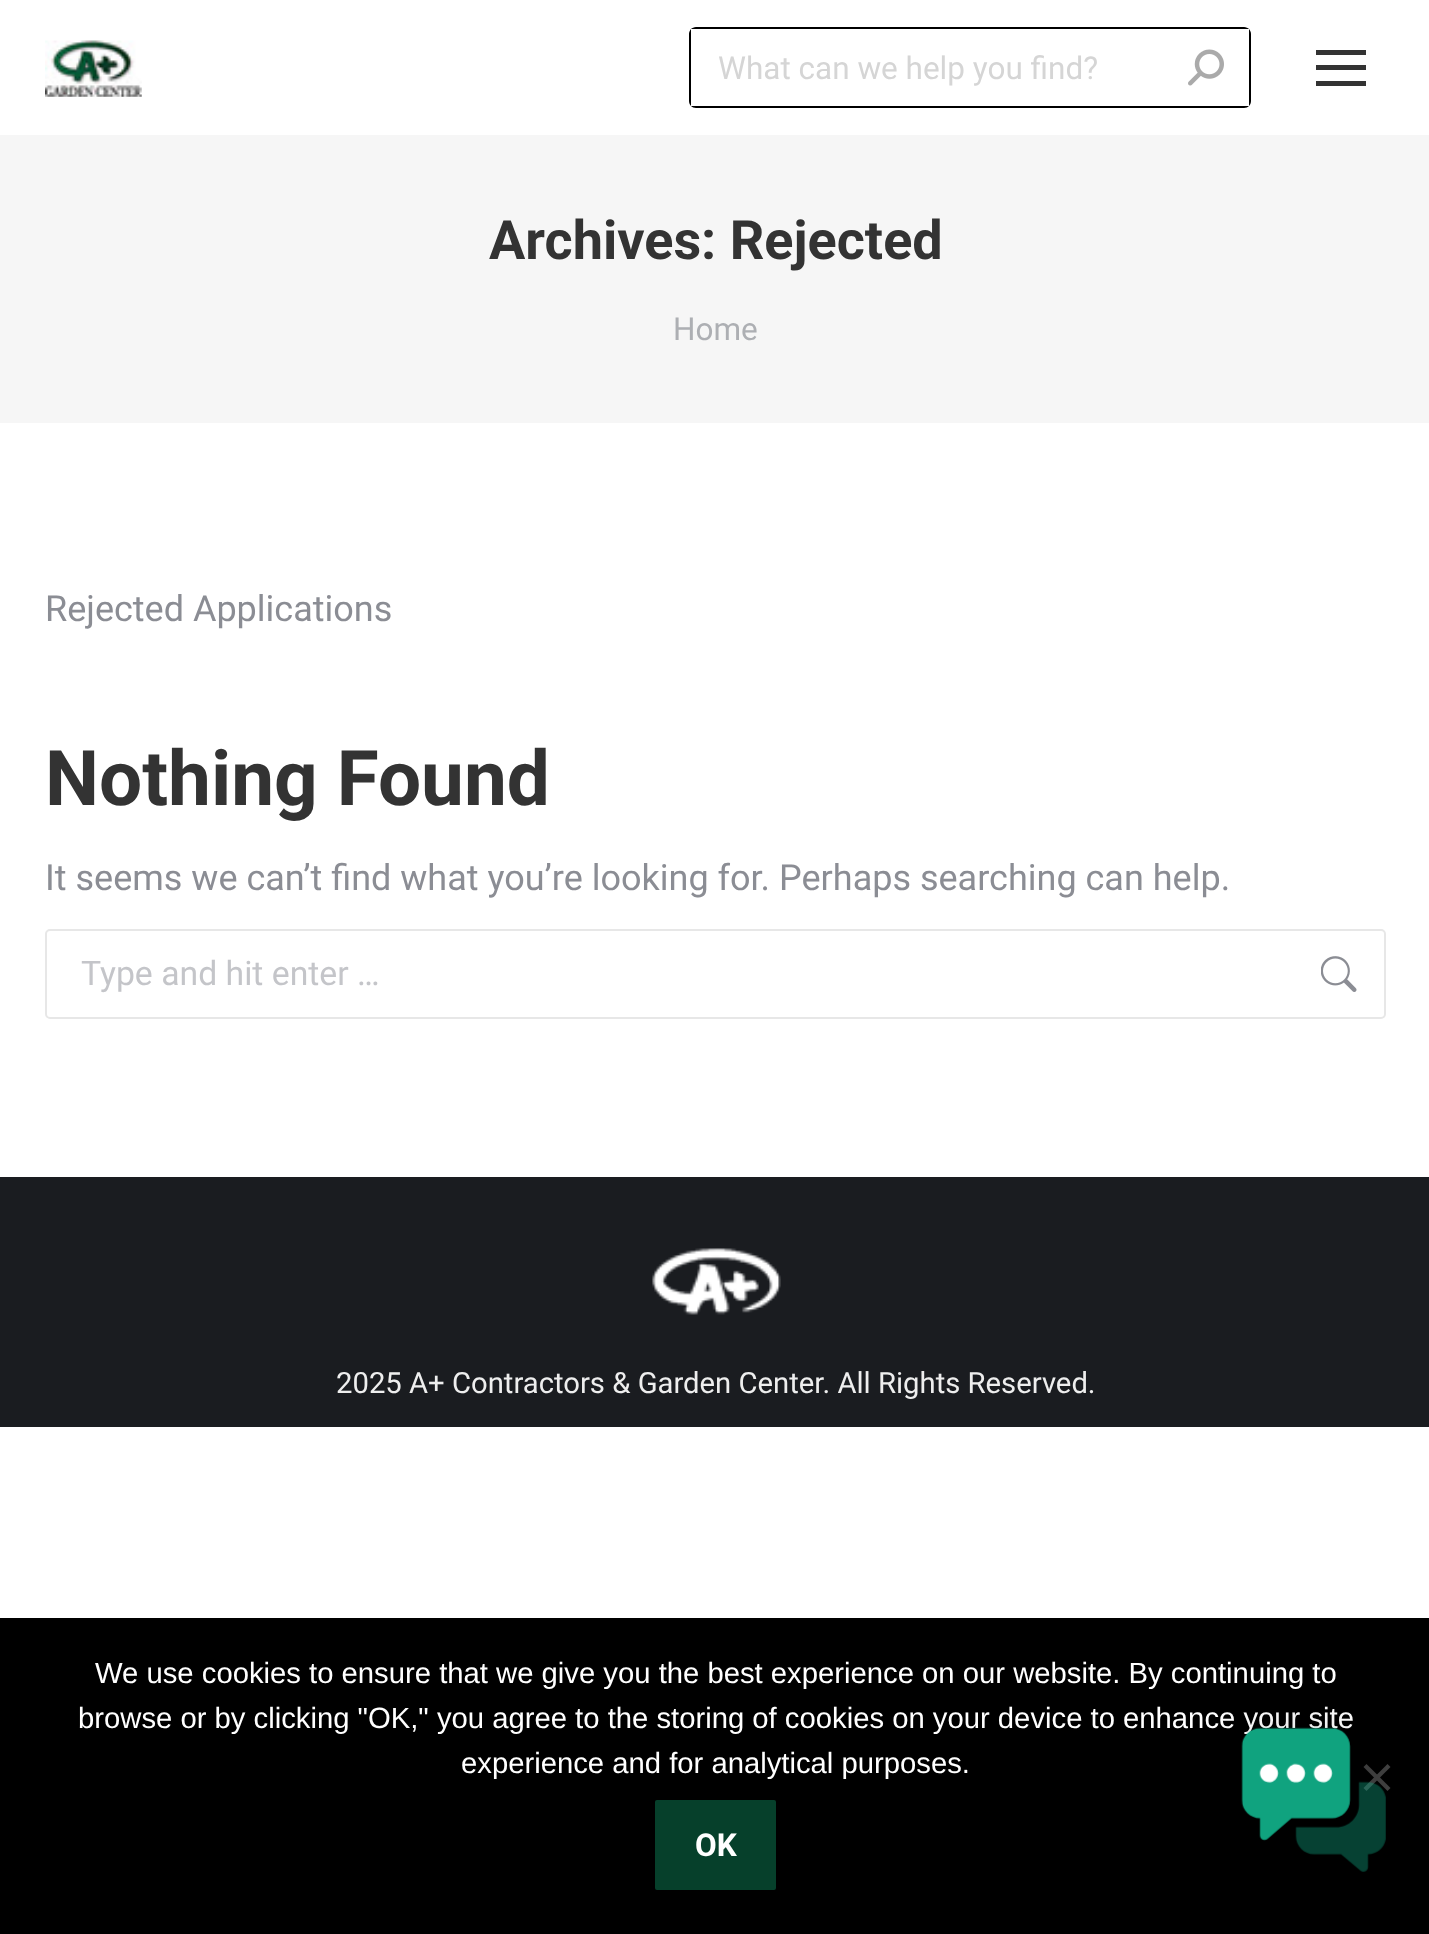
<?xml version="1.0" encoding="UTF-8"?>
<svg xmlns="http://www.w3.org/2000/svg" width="1429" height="1934">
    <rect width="100%" height="100%" fill="#FFFFFF"/>
    <image x="45" y="40" width="97" height="57" href="img_01.png"/>
    <path d="M 689 34 V 101 C 689 103 690 105 691 106 V 29 C 690 30 689 32 689 34 Z M 696 27 C 694 27 692 28 691 29 H 1249 C 1248 28 1246 27 1244 27 Z M 1251 34 C 1251 32 1250 30 1249 29 V 106 C 1250 105 1251 103 1251 101 Z M 1244 108 C 1246 108 1248 107 1249 106 H 691 C 692 107 694 108 696 108 Z" fill="#000000" fill-rule="evenodd"/>
    <text x="718" y="79" font-family="Roboto" font-size="31.5" fill="#D5D5D5">What can we help you find?</text>
    <image x="1188" y="49" width="36" height="37" href="img_02.png"/>
    <rect x="1316" y="50" width="50" height="5" fill="#333333"/>
    <rect x="1316" y="65" width="50" height="5" fill="#333333"/>
    <rect x="1316" y="81" width="50" height="5" fill="#333333"/>
    <rect x="0" y="135" width="1429" height="288" fill="#F6F6F6"/>
    <text x="489" y="259" font-family="Roboto" font-size="54" font-weight="700" fill="#333333">Archives: Rejected</text>
    <text x="673" y="340" font-family="Roboto" font-size="31.5" fill="#ADAFB3">Home</text>
    <text x="45" y="621" font-family="Roboto" font-size="36" fill="#8B8D94">Rejected Applications</text>
    <text x="45" y="805" font-family="Roboto" font-size="76.5" font-weight="700" fill="#333333">Nothing Found</text>
    <text x="45" y="890" font-family="Roboto" font-size="36" fill="#8B8D94">It seems we can’t find what you’re looking for. Perhaps searching can help.</text>
    <rect x="46" y="930" width="1339" height="88" rx="4" fill="none" stroke="#E7E7E7" stroke-width="2"/>
    <text x="81" y="985" font-family="Roboto" font-size="33.75" fill="#C4C5C9">Type and hit enter …</text>
    <image x="1321" y="956" width="36" height="36" href="img_03.png"/>
    <rect x="0" y="1177" width="1429" height="250" fill="#1A1C20"/>
    <image x="652" y="1248" width="129" height="67" href="img_04.png"/>
    <text x="336" y="1393" font-family="Roboto" font-size="29.25" fill="#EEEEEE">2025 A+ Contractors &amp; Garden Center. All Rights Reserved.</text>
    <rect x="0" y="1618" width="1429" height="316" fill="#000000"/>
    <text x="95" y="1683" font-family="Liberation Sans" font-size="29.25" fill="#FFFFFF">We use cookies to ensure that we give you the best experience on our website. By continuing to</text>
    <text x="78" y="1728" font-family="Liberation Sans" font-size="29.25" fill="#FFFFFF">browse or by clicking "OK," you agree to the storing of cookies on your device to enhance your site</text>
    <text x="461" y="1773" font-family="Liberation Sans" font-size="29.25" fill="#FFFFFF">experience and for analytical purposes.</text>
    <path d="M 1387.5 1764 L 1390.5 1767 L 1366.5 1791 L 1363.5 1788 Z" fill="#404040"/>
    <path d="M 1363.5 1767 L 1366.5 1764 L 1390.5 1788 L 1387.5 1791 Z" fill="#404040"/>
    <rect x="655" y="1800" width="121" height="90" rx="2" fill="#06402B"/>
    <text x="695" y="1856" font-family="Roboto" font-size="31.5" font-weight="700" fill="#FFFFFF">OK</text>
    <image x="1222" y="1707" width="164" height="165" href="img_05.png"/>
</svg>
